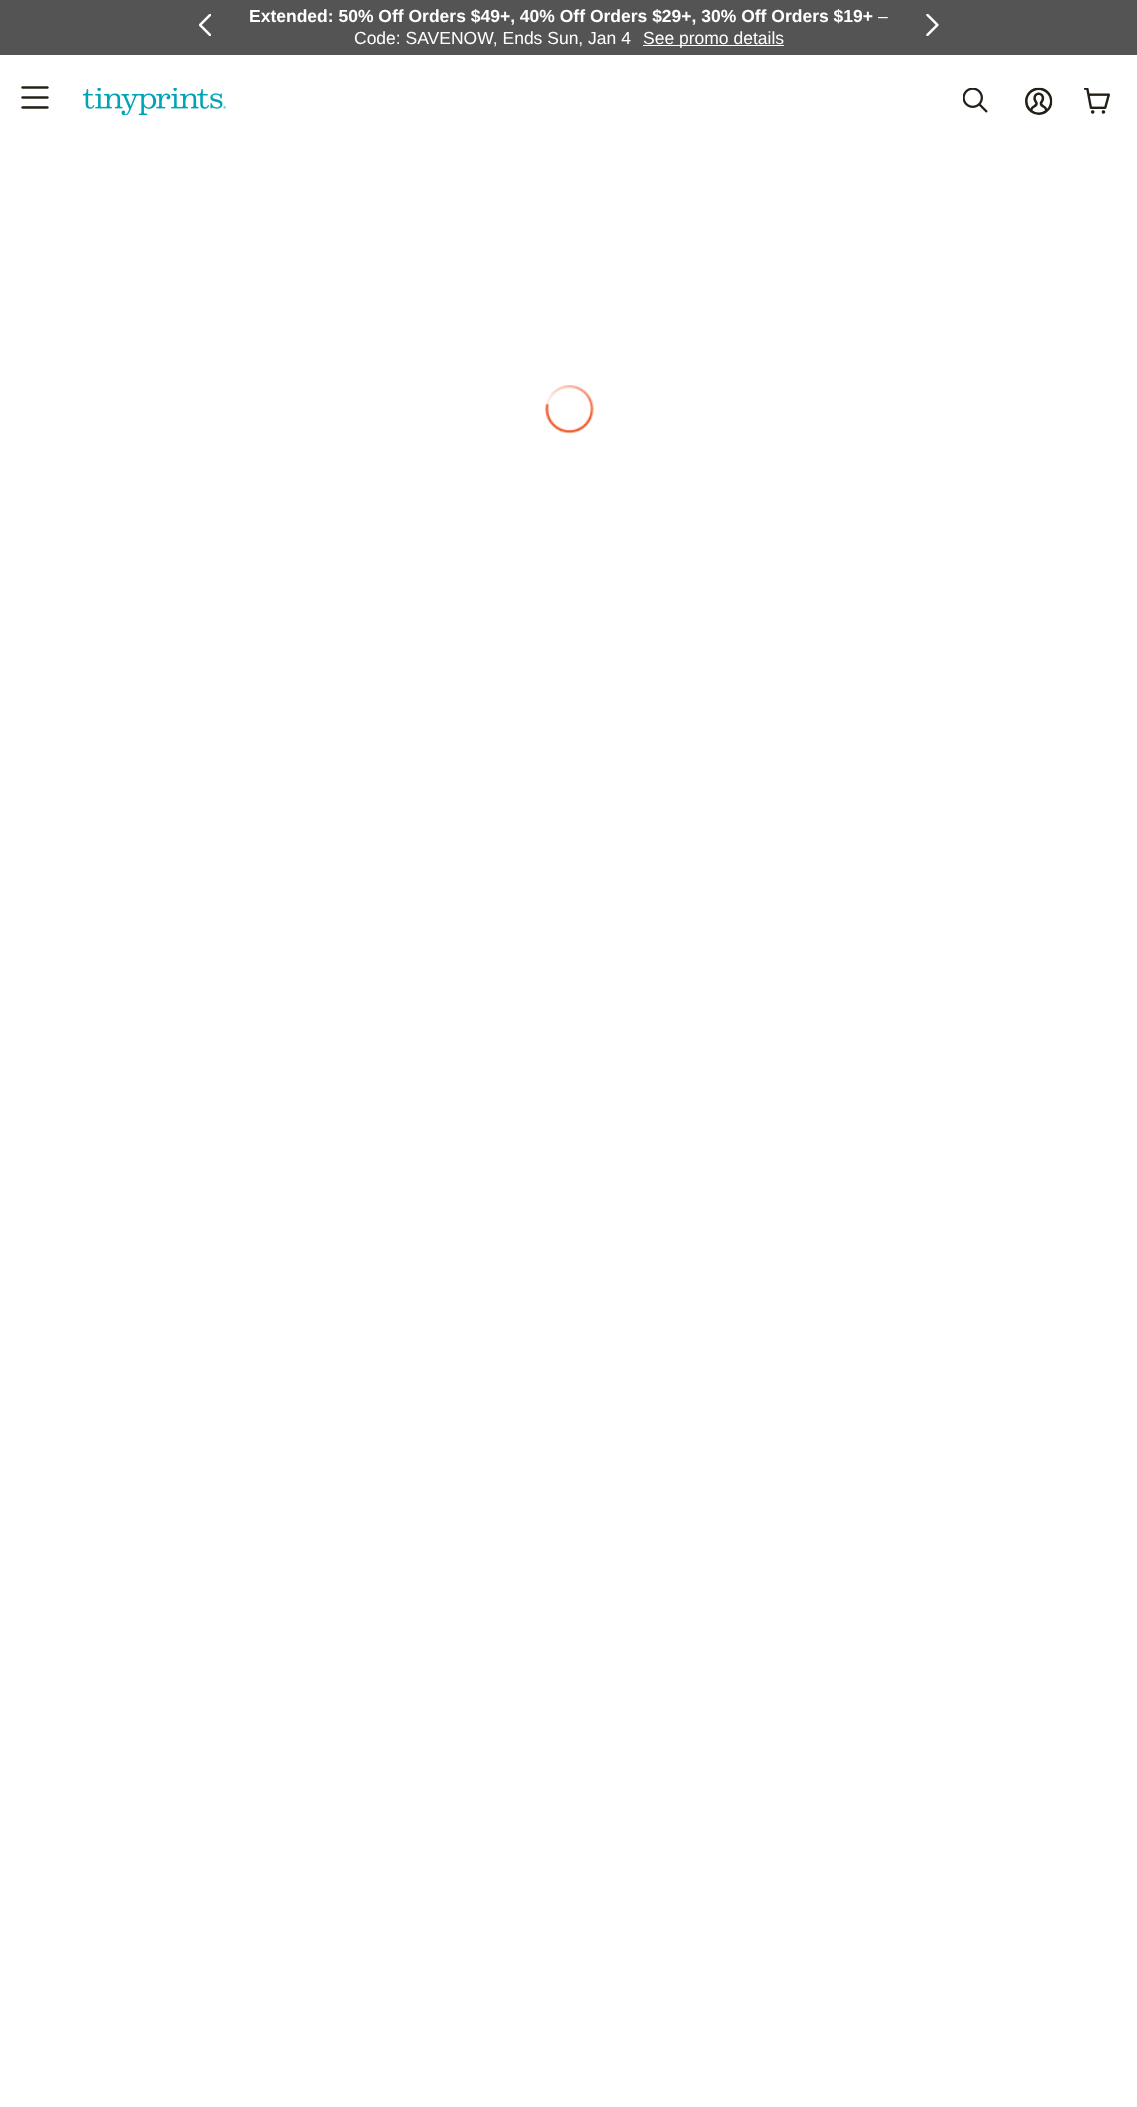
<?xml version="1.0" encoding="UTF-8"?>
<svg xmlns="http://www.w3.org/2000/svg" width="1137" height="2107">
    <rect width="100%" height="100%" fill="#FFFFFF"/>
    <rect x="0" y="0" width="1137" height="55" fill="#545454"/>
    <image x="199" y="14" width="12" height="22" href="img_01.png"/>
    <text x="249" y="22" font-family="Liberation Sans" font-size="17.5" font-weight="700" fill="#FFFFFF">Extended: 50% Off Orders $49+, 40% Off Orders $29+, 30% Off Orders $19+</text>
    <text x="878" y="22" font-family="Liberation Sans" font-size="17.5" fill="#FFFFFF">–</text>
    <text x="354" y="44" font-family="Liberation Sans" font-size="17.5" fill="#FFFFFF">Code: SAVENOW, Ends Sun, Jan 4</text>
    <rect x="643" y="45" width="141" height="1" fill="#FFFFFF"/>
    <text x="643" y="44" font-family="Liberation Sans" font-size="17.5" fill="#FFFFFF">See promo details</text>
    <image x="926" y="14" width="13" height="22" href="img_02.png"/>
    <image x="21" y="86" width="28" height="23" href="img_03.png"/>
    <image x="83" y="88" width="143" height="27" href="img_04.png"/>
    <image x="963" y="88" width="25" height="25" href="img_05.png"/>
    <image x="1025" y="87" width="28" height="28" href="img_06.png"/>
    <image x="1084" y="88" width="26" height="26" href="img_07.png"/>
    <image x="545" y="385" width="49" height="49" href="img_08.png"/>
</svg>
